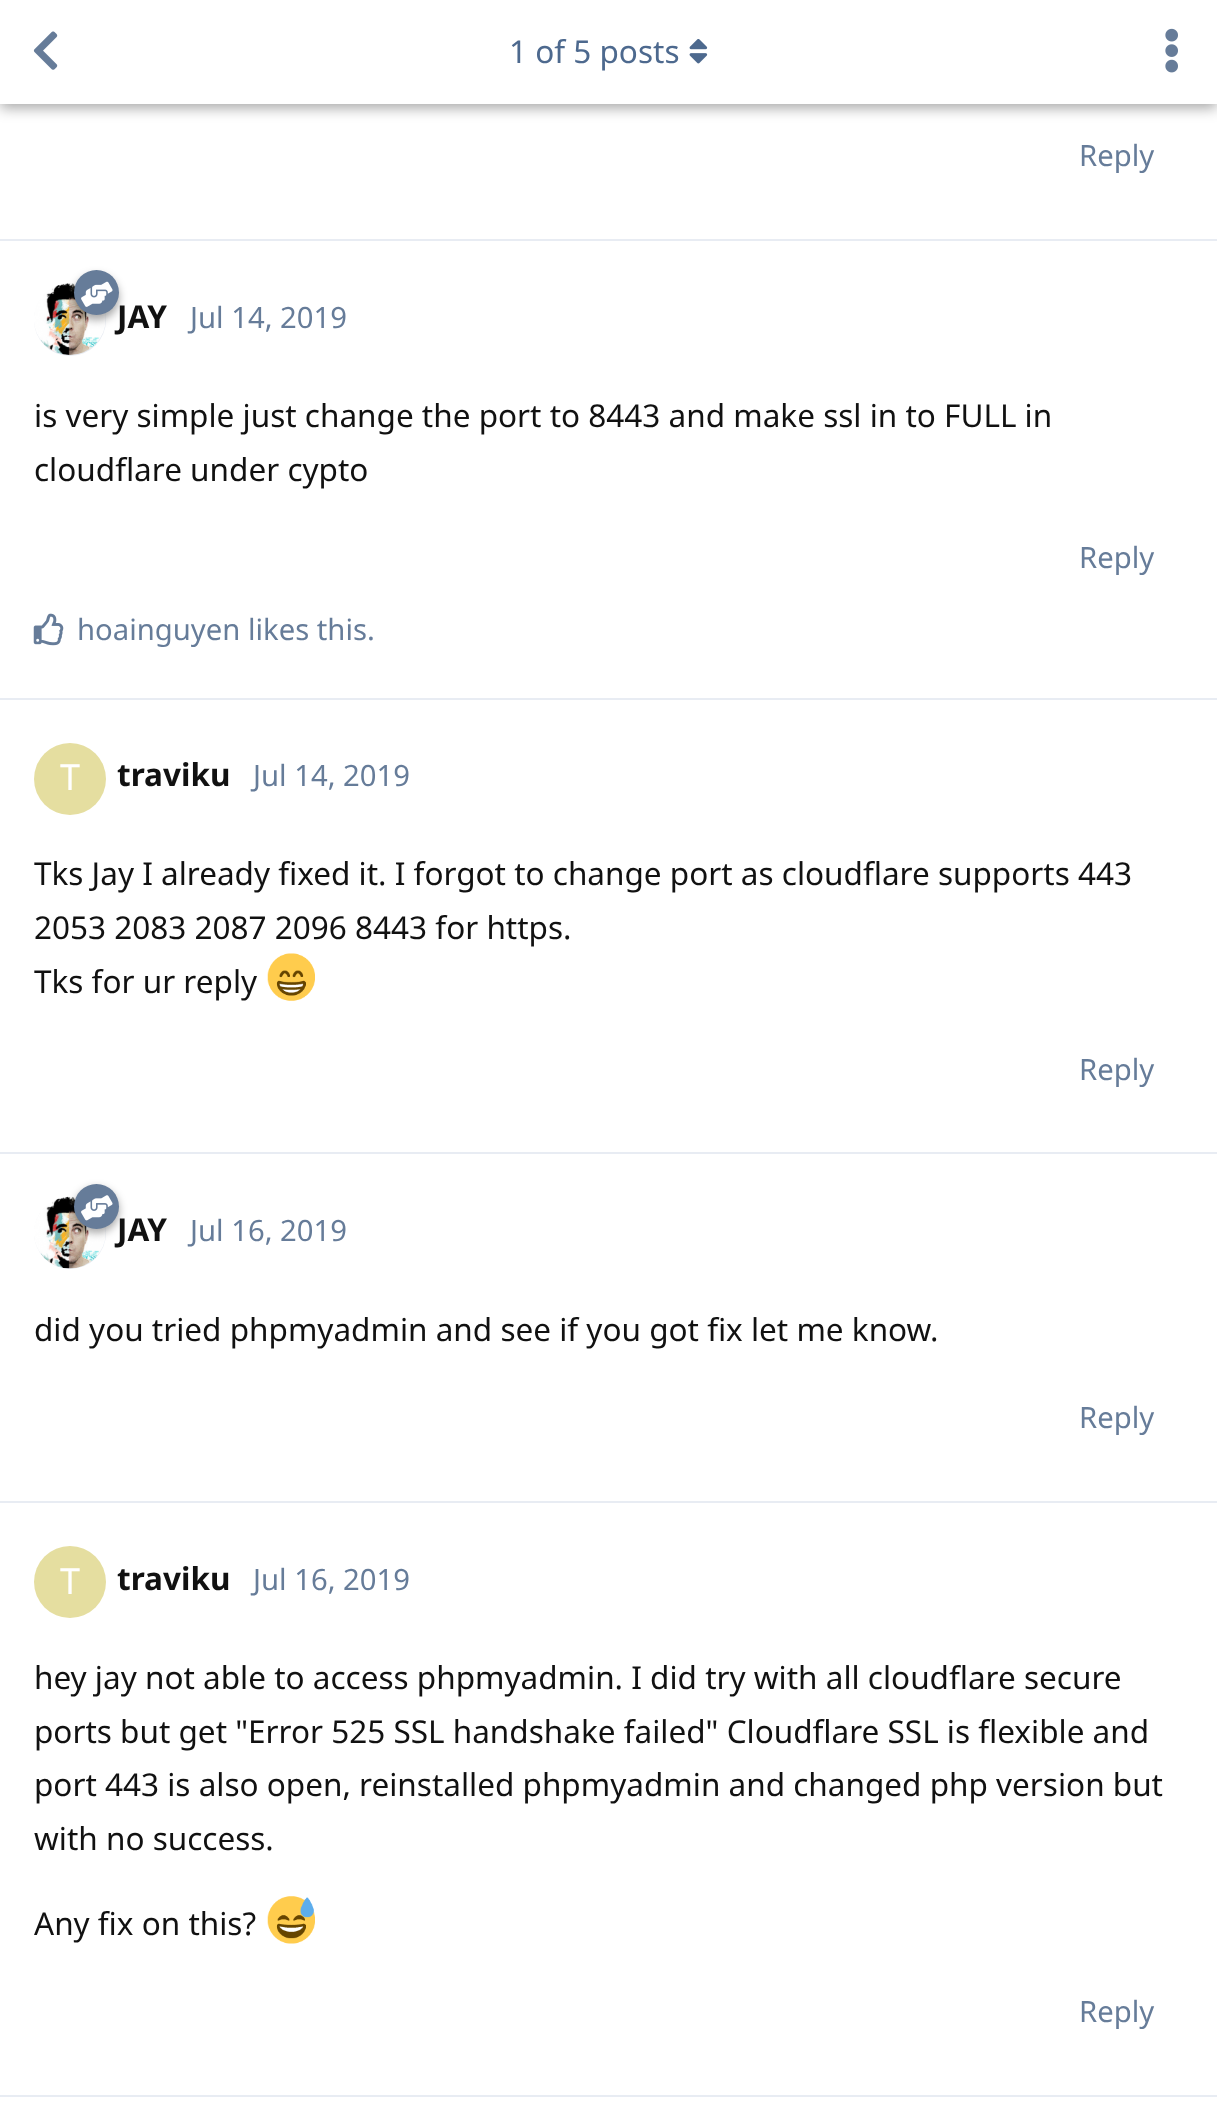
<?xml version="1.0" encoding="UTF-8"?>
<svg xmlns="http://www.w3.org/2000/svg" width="1217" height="2124">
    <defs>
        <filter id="blur1" x="-50%" y="-200%" width="200%" height="500%"><feGaussianBlur stdDeviation="7"/></filter>
        <filter id="blur2" x="-50%" y="-200%" width="200%" height="500%"><feGaussianBlur stdDeviation="4.5"/></filter>
    </defs>
    <rect width="100%" height="100%" fill="#FFFFFF"/>
    <rect x="0" y="5" width="1217" height="103" fill="#000000" fill-opacity="0.35" filter="url(#blur1)"/>
    <rect x="0" y="0" width="1217" height="104" fill="#FFFFFF"/>
    <image x="33" y="31" width="25" height="39" href="img_01.png"/>
    <text x="509" y="63" font-family="Noto Sans" font-size="31.5" fill="#4D698E">1 of 5 posts</text>
    <image x="689" y="39" width="19" height="25" href="img_02.png"/>
    <image x="1165" y="28" width="13" height="45" href="img_03.png"/>
    <rect x="0" y="239" width="1217" height="2" fill="#E8ECF3"/>
    <text x="1079" y="166" font-family="Noto Sans" font-size="29.25" fill="#667C99">Reply</text>
    <rect x="0" y="698" width="1217" height="2" fill="#E8ECF3"/>
    <circle cx="70" cy="320" r="36" fill="#E8ECF3"/>
    <image x="34" y="283" width="72" height="72" href="img_05.png"/>
    <rect x="74" y="275" width="45" height="45" rx="22.5" fill="#000000" fill-opacity="0.35" filter="url(#blur2)"/>
    <text x="117" y="328" font-family="Noto Sans" font-size="31.5" font-weight="700" fill="#111111">JAY</text>
    <circle cx="96.5" cy="292.5" r="22.5" fill="#667C99"/>
    <image x="81" y="281" width="32" height="26" href="img_04.png"/>
    <text x="190" y="328" font-family="Noto Sans" font-size="29.25" fill="#667C99">Jul 14, 2019</text>
    <text font-family="Noto Sans" font-size="31.5" fill="#111111">
        <tspan x="34" y="427">is very simple just change the port to 8443 and make ssl in to FULL in</tspan>
        <tspan x="34" y="481">cloudflare under cypto</tspan>
    </text>
    <text x="1079" y="568" font-family="Noto Sans" font-size="29.25" fill="#667C99">Reply</text>
    <image x="33" y="613" width="31" height="33" href="img_06.png"/>
    <text x="77" y="640" font-family="Noto Sans" font-size="29.25" fill="#667C99">hoainguyen likes this.</text>
    <rect x="0" y="1152" width="1217" height="2" fill="#E8ECF3"/>
    <circle cx="70" cy="779" r="36" fill="#E5DEA0"/>
    <text x="60" y="790" font-family="Noto Sans" font-size="36" fill="#FFFFFF">T</text>
    <text x="117" y="786" font-family="Noto Sans" font-size="31.5" font-weight="700" fill="#111111">traviku</text>
    <text x="253" y="786" font-family="Noto Sans" font-size="29.25" fill="#667C99">Jul 14, 2019</text>
    <text font-family="Noto Sans" font-size="31.5" fill="#111111">
        <tspan x="34" y="885">Tks Jay I already fixed it. I forgot to change port as cloudflare supports 443</tspan>
        <tspan x="34" y="939">2053 2083 2087 2096 8443 for https.</tspan>
        <tspan x="34" y="993">Tks for ur reply</tspan>
    </text>
    <image x="267" y="953" width="48" height="48" href="img_07.png"/>
    <text x="1079" y="1080" font-family="Noto Sans" font-size="29.25" fill="#667C99">Reply</text>
    <rect x="0" y="1501" width="1217" height="2" fill="#E8ECF3"/>
    <circle cx="70" cy="1233" r="36" fill="#E8ECF3"/>
    <image x="34" y="1196" width="72" height="73" href="img_09.png"/>
    <rect x="74" y="1188" width="45" height="45" rx="22.5" fill="#000000" fill-opacity="0.35" filter="url(#blur2)"/>
    <text x="117" y="1241" font-family="Noto Sans" font-size="31.5" font-weight="700" fill="#111111">JAY</text>
    <circle cx="96.5" cy="1206.5" r="22.5" fill="#667C99"/>
    <image x="81" y="1195" width="32" height="26" href="img_08.png"/>
    <text x="190" y="1241" font-family="Noto Sans" font-size="29.25" fill="#667C99">Jul 16, 2019</text>
    <text x="34" y="1341" font-family="Noto Sans" font-size="31.5" fill="#111111">did you tried phpmyadmin and see if you got fix let me know.</text>
    <text x="1079" y="1428" font-family="Noto Sans" font-size="29.25" fill="#667C99">Reply</text>
    <rect x="0" y="2095" width="1217" height="2" fill="#E8ECF3"/>
    <circle cx="70" cy="1582" r="36" fill="#E5DEA0"/>
    <text x="60" y="1594" font-family="Noto Sans" font-size="36" fill="#FFFFFF">T</text>
    <text x="117" y="1590" font-family="Noto Sans" font-size="31.5" font-weight="700" fill="#111111">traviku</text>
    <text x="253" y="1590" font-family="Noto Sans" font-size="29.25" fill="#667C99">Jul 16, 2019</text>
    <text font-family="Noto Sans" font-size="31.5" fill="#111111">
        <tspan x="34" y="1689">hey jay not able to access phpmyadmin. I did try with all cloudflare secure</tspan>
        <tspan x="34" y="1743">ports but get "Error 525 SSL handshake failed" Cloudflare SSL is flexible and</tspan>
        <tspan x="34" y="1796">port 443 is also open, reinstalled phpmyadmin and changed php version but</tspan>
        <tspan x="34" y="1850">with no success.</tspan>
    </text>
    <text x="34" y="1935" font-family="Noto Sans" font-size="31.5" fill="#111111">Any fix on this?</text>
    <image x="267" y="1896" width="48" height="48" href="img_10.png"/>
    <text x="1079" y="2022" font-family="Noto Sans" font-size="29.25" fill="#667C99">Reply</text>
</svg>
